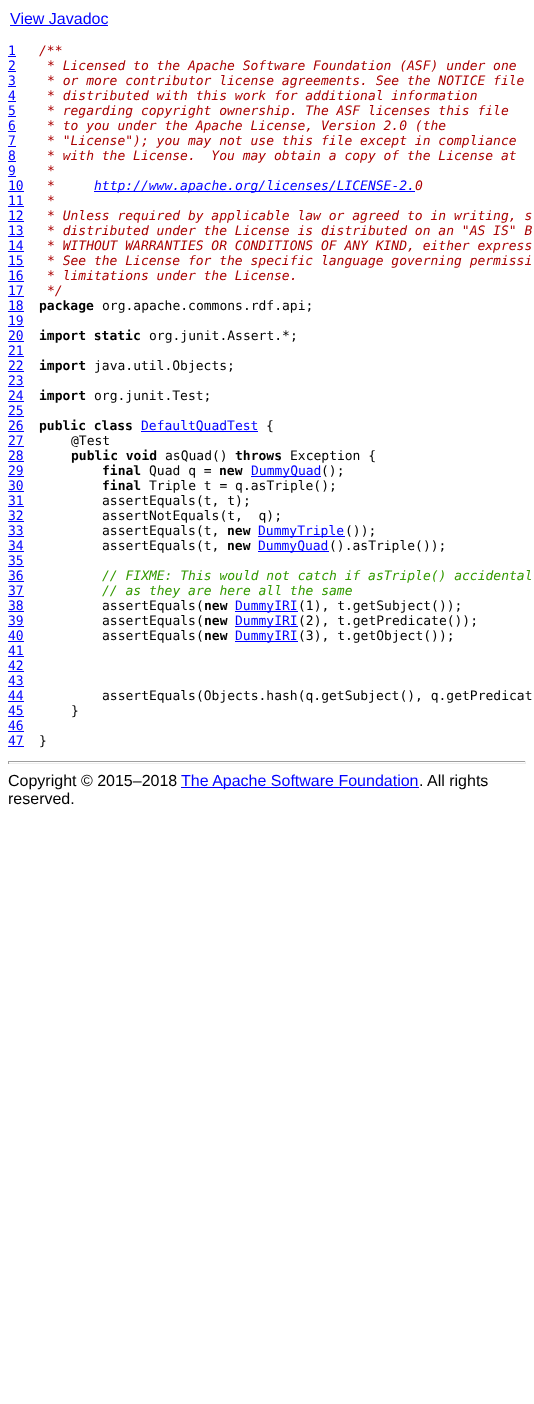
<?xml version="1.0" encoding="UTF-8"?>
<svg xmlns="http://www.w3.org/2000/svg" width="534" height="1404">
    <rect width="100%" height="100%" fill="#FFFFFF"/>
    <text x="10" y="24" font-family="Liberation Sans" font-size="16" fill="#0000FF">View Javadoc</text>
    <rect x="10" y="25" width="98" height="1" fill="#0000FF"/>
    <text x="8" y="55" font-family="DejaVu Sans Mono" font-size="13" fill="#0000FF">1</text>
    <rect x="8" y="56" width="8" height="1" fill="#0000FF"/>
    <text x="39" y="55" font-family="DejaVu Sans Mono" font-size="13" font-style="italic" fill="#AA0000">/**</text>
    <text x="8" y="70" font-family="DejaVu Sans Mono" font-size="13" fill="#0000FF">2</text>
    <rect x="8" y="71" width="8" height="1" fill="#0000FF"/>
    <text x="47" y="70" font-family="DejaVu Sans Mono" font-size="13" font-style="italic" fill="#AA0000">* Licensed to the Apache Software Foundation (ASF) under one</text>
    <text x="8" y="85" font-family="DejaVu Sans Mono" font-size="13" fill="#0000FF">3</text>
    <rect x="8" y="86" width="8" height="1" fill="#0000FF"/>
    <text x="47" y="85" font-family="DejaVu Sans Mono" font-size="13" font-style="italic" fill="#AA0000">* or more contributor license agreements. See the NOTICE file</text>
    <text x="8" y="100" font-family="DejaVu Sans Mono" font-size="13" fill="#0000FF">4</text>
    <rect x="8" y="101" width="8" height="1" fill="#0000FF"/>
    <text x="47" y="100" font-family="DejaVu Sans Mono" font-size="13" font-style="italic" fill="#AA0000">* distributed with this work for additional information</text>
    <text x="8" y="115" font-family="DejaVu Sans Mono" font-size="13" fill="#0000FF">5</text>
    <rect x="8" y="116" width="8" height="1" fill="#0000FF"/>
    <text x="47" y="115" font-family="DejaVu Sans Mono" font-size="13" font-style="italic" fill="#AA0000">* regarding copyright ownership. The ASF licenses this file</text>
    <text x="8" y="130" font-family="DejaVu Sans Mono" font-size="13" fill="#0000FF">6</text>
    <rect x="8" y="131" width="8" height="1" fill="#0000FF"/>
    <text x="47" y="130" font-family="DejaVu Sans Mono" font-size="13" font-style="italic" fill="#AA0000">* to you under the Apache License, Version 2.0 (the</text>
    <text x="8" y="145" font-family="DejaVu Sans Mono" font-size="13" fill="#0000FF">7</text>
    <rect x="8" y="146" width="8" height="1" fill="#0000FF"/>
    <text x="47" y="145" font-family="DejaVu Sans Mono" font-size="13" font-style="italic" fill="#AA0000">* "License"); you may not use this file except in compliance</text>
    <text x="8" y="160" font-family="DejaVu Sans Mono" font-size="13" fill="#0000FF">8</text>
    <rect x="8" y="161" width="8" height="1" fill="#0000FF"/>
    <text x="47" y="160" font-family="DejaVu Sans Mono" font-size="13" font-style="italic" fill="#AA0000" xml:space="preserve">* with the License.  You may obtain a copy of the License at</text>
    <text x="8" y="175" font-family="DejaVu Sans Mono" font-size="13" fill="#0000FF">9</text>
    <rect x="8" y="176" width="8" height="1" fill="#0000FF"/>
    <text x="47" y="175" font-family="DejaVu Sans Mono" font-size="13" font-style="italic" fill="#AA0000">*</text>
    <text x="8" y="190" font-family="DejaVu Sans Mono" font-size="13" fill="#0000FF">10</text>
    <rect x="8" y="191" width="16" height="1" fill="#0000FF"/>
    <text x="47" y="190" font-family="DejaVu Sans Mono" font-size="13" font-style="italic" fill="#AA0000">*</text>
    <rect x="94" y="191" width="321" height="1" fill="#0000FF"/>
    <text x="94" y="190" font-family="DejaVu Sans Mono" font-size="13" font-style="italic" fill="#0000FF">http://www.apache.org/licenses/LICENSE-2.</text>
    <text x="415" y="190" font-family="DejaVu Sans Mono" font-size="13" font-style="italic" fill="#AA0000">0</text>
    <text x="8" y="205" font-family="DejaVu Sans Mono" font-size="13" fill="#0000FF">11</text>
    <rect x="8" y="206" width="16" height="1" fill="#0000FF"/>
    <text x="47" y="205" font-family="DejaVu Sans Mono" font-size="13" font-style="italic" fill="#AA0000">*</text>
    <text x="8" y="220" font-family="DejaVu Sans Mono" font-size="13" fill="#0000FF">12</text>
    <rect x="8" y="221" width="16" height="1" fill="#0000FF"/>
    <text x="47" y="220" font-family="DejaVu Sans Mono" font-size="13" font-style="italic" fill="#AA0000">* Unless required by applicable law or agreed to in writing, s</text>
    <text x="8" y="235" font-family="DejaVu Sans Mono" font-size="13" fill="#0000FF">13</text>
    <rect x="8" y="236" width="16" height="1" fill="#0000FF"/>
    <text x="47" y="235" font-family="DejaVu Sans Mono" font-size="13" font-style="italic" fill="#AA0000">* distributed under the License is distributed on an "AS IS" B</text>
    <text x="8" y="250" font-family="DejaVu Sans Mono" font-size="13" fill="#0000FF">14</text>
    <rect x="8" y="251" width="16" height="1" fill="#0000FF"/>
    <text x="47" y="250" font-family="DejaVu Sans Mono" font-size="13" font-style="italic" fill="#AA0000">* WITHOUT WARRANTIES OR CONDITIONS OF ANY KIND, either express</text>
    <text x="8" y="265" font-family="DejaVu Sans Mono" font-size="13" fill="#0000FF">15</text>
    <rect x="8" y="266" width="16" height="1" fill="#0000FF"/>
    <text x="47" y="265" font-family="DejaVu Sans Mono" font-size="13" font-style="italic" fill="#AA0000">* See the License for the specific language governing permissi</text>
    <text x="8" y="280" font-family="DejaVu Sans Mono" font-size="13" fill="#0000FF">16</text>
    <rect x="8" y="281" width="16" height="1" fill="#0000FF"/>
    <text x="47" y="280" font-family="DejaVu Sans Mono" font-size="13" font-style="italic" fill="#AA0000">* limitations under the License.</text>
    <text x="8" y="295" font-family="DejaVu Sans Mono" font-size="13" fill="#0000FF">17</text>
    <rect x="8" y="296" width="16" height="1" fill="#0000FF"/>
    <text x="47" y="295" font-family="DejaVu Sans Mono" font-size="13" font-style="italic" fill="#AA0000">*/</text>
    <text x="8" y="310" font-family="DejaVu Sans Mono" font-size="13" fill="#0000FF">18</text>
    <rect x="8" y="311" width="16" height="1" fill="#0000FF"/>
    <text x="39" y="310" font-family="DejaVu Sans Mono" font-size="13" font-weight="700" fill="#000000">package</text>
    <text x="102" y="310" font-family="DejaVu Sans Mono" font-size="13" fill="#000000">org.apache.commons.rdf.api;</text>
    <text x="8" y="325" font-family="DejaVu Sans Mono" font-size="13" fill="#0000FF">19</text>
    <rect x="8" y="326" width="16" height="1" fill="#0000FF"/>
    <text x="8" y="340" font-family="DejaVu Sans Mono" font-size="13" fill="#0000FF">20</text>
    <rect x="8" y="341" width="16" height="1" fill="#0000FF"/>
    <text x="39" y="340" font-family="DejaVu Sans Mono" font-size="13" font-weight="700" fill="#000000">import static</text>
    <text x="149" y="340" font-family="DejaVu Sans Mono" font-size="13" fill="#000000">org.junit.Assert.*;</text>
    <text x="8" y="355" font-family="DejaVu Sans Mono" font-size="13" fill="#0000FF">21</text>
    <rect x="8" y="356" width="16" height="1" fill="#0000FF"/>
    <text x="8" y="370" font-family="DejaVu Sans Mono" font-size="13" fill="#0000FF">22</text>
    <rect x="8" y="371" width="16" height="1" fill="#0000FF"/>
    <text x="39" y="370" font-family="DejaVu Sans Mono" font-size="13" font-weight="700" fill="#000000">import</text>
    <text x="94" y="370" font-family="DejaVu Sans Mono" font-size="13" fill="#000000">java.util.Objects;</text>
    <text x="8" y="385" font-family="DejaVu Sans Mono" font-size="13" fill="#0000FF">23</text>
    <rect x="8" y="386" width="16" height="1" fill="#0000FF"/>
    <text x="8" y="400" font-family="DejaVu Sans Mono" font-size="13" fill="#0000FF">24</text>
    <rect x="8" y="401" width="16" height="1" fill="#0000FF"/>
    <text x="39" y="400" font-family="DejaVu Sans Mono" font-size="13" font-weight="700" fill="#000000">import</text>
    <text x="94" y="400" font-family="DejaVu Sans Mono" font-size="13" fill="#000000">org.junit.Test;</text>
    <text x="8" y="415" font-family="DejaVu Sans Mono" font-size="13" fill="#0000FF">25</text>
    <rect x="8" y="416" width="16" height="1" fill="#0000FF"/>
    <text x="8" y="430" font-family="DejaVu Sans Mono" font-size="13" fill="#0000FF">26</text>
    <rect x="8" y="431" width="16" height="1" fill="#0000FF"/>
    <text x="39" y="430" font-family="DejaVu Sans Mono" font-size="13" font-weight="700" fill="#000000">public class</text>
    <rect x="141" y="431" width="117" height="1" fill="#0000FF"/>
    <text x="141" y="430" font-family="DejaVu Sans Mono" font-size="13" fill="#0000FF">DefaultQuadTest</text>
    <text x="266" y="430" font-family="DejaVu Sans Mono" font-size="13" fill="#000000">{</text>
    <text x="8" y="445" font-family="DejaVu Sans Mono" font-size="13" fill="#0000FF">27</text>
    <rect x="8" y="446" width="16" height="1" fill="#0000FF"/>
    <text x="71" y="445" font-family="DejaVu Sans Mono" font-size="13" fill="#000000">@Test</text>
    <text x="8" y="460" font-family="DejaVu Sans Mono" font-size="13" fill="#0000FF">28</text>
    <rect x="8" y="461" width="16" height="1" fill="#0000FF"/>
    <text x="71" y="460" font-family="DejaVu Sans Mono" font-size="13" font-weight="700" fill="#000000">public void</text>
    <text x="165" y="460" font-family="DejaVu Sans Mono" font-size="13" fill="#000000">asQuad()</text>
    <text x="235" y="460" font-family="DejaVu Sans Mono" font-size="13" font-weight="700" fill="#000000">throws</text>
    <text x="290" y="460" font-family="DejaVu Sans Mono" font-size="13" fill="#000000">Exception {</text>
    <text x="8" y="475" font-family="DejaVu Sans Mono" font-size="13" fill="#0000FF">29</text>
    <rect x="8" y="476" width="16" height="1" fill="#0000FF"/>
    <text x="102" y="475" font-family="DejaVu Sans Mono" font-size="13" font-weight="700" fill="#000000">final</text>
    <text x="149" y="475" font-family="DejaVu Sans Mono" font-size="13" fill="#000000">Quad q =</text>
    <text x="219" y="475" font-family="DejaVu Sans Mono" font-size="13" font-weight="700" fill="#000000">new</text>
    <rect x="251" y="476" width="70" height="1" fill="#0000FF"/>
    <text x="251" y="475" font-family="DejaVu Sans Mono" font-size="13" fill="#0000FF">DummyQuad</text>
    <text x="321" y="475" font-family="DejaVu Sans Mono" font-size="13" fill="#000000">();</text>
    <text x="8" y="490" font-family="DejaVu Sans Mono" font-size="13" fill="#0000FF">30</text>
    <rect x="8" y="491" width="16" height="1" fill="#0000FF"/>
    <text x="102" y="490" font-family="DejaVu Sans Mono" font-size="13" font-weight="700" fill="#000000">final</text>
    <text x="149" y="490" font-family="DejaVu Sans Mono" font-size="13" fill="#000000">Triple t = q.asTriple();</text>
    <text x="8" y="505" font-family="DejaVu Sans Mono" font-size="13" fill="#0000FF">31</text>
    <rect x="8" y="506" width="16" height="1" fill="#0000FF"/>
    <text x="102" y="505" font-family="DejaVu Sans Mono" font-size="13" fill="#000000">assertEquals(t, t);</text>
    <text x="8" y="520" font-family="DejaVu Sans Mono" font-size="13" fill="#0000FF">32</text>
    <rect x="8" y="521" width="16" height="1" fill="#0000FF"/>
    <text x="102" y="520" font-family="DejaVu Sans Mono" font-size="13" fill="#000000" xml:space="preserve">assertNotEquals(t,  q);</text>
    <text x="8" y="535" font-family="DejaVu Sans Mono" font-size="13" fill="#0000FF">33</text>
    <rect x="8" y="536" width="16" height="1" fill="#0000FF"/>
    <text x="102" y="535" font-family="DejaVu Sans Mono" font-size="13" fill="#000000">assertEquals(t,</text>
    <text x="227" y="535" font-family="DejaVu Sans Mono" font-size="13" font-weight="700" fill="#000000">new</text>
    <rect x="258" y="536" width="87" height="1" fill="#0000FF"/>
    <text x="258" y="535" font-family="DejaVu Sans Mono" font-size="13" fill="#0000FF">DummyTriple</text>
    <text x="345" y="535" font-family="DejaVu Sans Mono" font-size="13" fill="#000000">());</text>
    <text x="8" y="550" font-family="DejaVu Sans Mono" font-size="13" fill="#0000FF">34</text>
    <rect x="8" y="551" width="16" height="1" fill="#0000FF"/>
    <text x="102" y="550" font-family="DejaVu Sans Mono" font-size="13" fill="#000000">assertEquals(t,</text>
    <text x="227" y="550" font-family="DejaVu Sans Mono" font-size="13" font-weight="700" fill="#000000">new</text>
    <rect x="258" y="551" width="71" height="1" fill="#0000FF"/>
    <text x="258" y="550" font-family="DejaVu Sans Mono" font-size="13" fill="#0000FF">DummyQuad</text>
    <text x="329" y="550" font-family="DejaVu Sans Mono" font-size="13" fill="#000000">().asTriple());</text>
    <text x="8" y="565" font-family="DejaVu Sans Mono" font-size="13" fill="#0000FF">35</text>
    <rect x="8" y="566" width="16" height="1" fill="#0000FF"/>
    <text x="8" y="580" font-family="DejaVu Sans Mono" font-size="13" fill="#0000FF">36</text>
    <rect x="8" y="581" width="16" height="1" fill="#0000FF"/>
    <text x="102" y="580" font-family="DejaVu Sans Mono" font-size="13" font-style="italic" fill="#339900">// FIXME: This would not catch if asTriple() accidental</text>
    <text x="8" y="595" font-family="DejaVu Sans Mono" font-size="13" fill="#0000FF">37</text>
    <rect x="8" y="596" width="16" height="1" fill="#0000FF"/>
    <text x="102" y="595" font-family="DejaVu Sans Mono" font-size="13" font-style="italic" fill="#339900">// as they are here all the same</text>
    <text x="8" y="610" font-family="DejaVu Sans Mono" font-size="13" fill="#0000FF">38</text>
    <rect x="8" y="611" width="16" height="1" fill="#0000FF"/>
    <text x="102" y="610" font-family="DejaVu Sans Mono" font-size="13" fill="#000000">assertEquals(</text>
    <text x="204" y="610" font-family="DejaVu Sans Mono" font-size="13" font-weight="700" fill="#000000">new</text>
    <rect x="235" y="611" width="63" height="1" fill="#0000FF"/>
    <text x="235" y="610" font-family="DejaVu Sans Mono" font-size="13" fill="#0000FF">DummyIRI</text>
    <text x="298" y="610" font-family="DejaVu Sans Mono" font-size="13" fill="#000000">(1), t.getSubject());</text>
    <text x="8" y="625" font-family="DejaVu Sans Mono" font-size="13" fill="#0000FF">39</text>
    <rect x="8" y="626" width="16" height="1" fill="#0000FF"/>
    <text x="102" y="625" font-family="DejaVu Sans Mono" font-size="13" fill="#000000">assertEquals(</text>
    <text x="204" y="625" font-family="DejaVu Sans Mono" font-size="13" font-weight="700" fill="#000000">new</text>
    <rect x="235" y="626" width="63" height="1" fill="#0000FF"/>
    <text x="235" y="625" font-family="DejaVu Sans Mono" font-size="13" fill="#0000FF">DummyIRI</text>
    <text x="298" y="625" font-family="DejaVu Sans Mono" font-size="13" fill="#000000">(2), t.getPredicate());</text>
    <text x="8" y="640" font-family="DejaVu Sans Mono" font-size="13" fill="#0000FF">40</text>
    <rect x="8" y="641" width="16" height="1" fill="#0000FF"/>
    <text x="102" y="640" font-family="DejaVu Sans Mono" font-size="13" fill="#000000">assertEquals(</text>
    <text x="204" y="640" font-family="DejaVu Sans Mono" font-size="13" font-weight="700" fill="#000000">new</text>
    <rect x="235" y="641" width="63" height="1" fill="#0000FF"/>
    <text x="235" y="640" font-family="DejaVu Sans Mono" font-size="13" fill="#0000FF">DummyIRI</text>
    <text x="298" y="640" font-family="DejaVu Sans Mono" font-size="13" fill="#000000">(3), t.getObject());</text>
    <text x="8" y="655" font-family="DejaVu Sans Mono" font-size="13" fill="#0000FF">41</text>
    <rect x="8" y="656" width="16" height="1" fill="#0000FF"/>
    <text x="8" y="670" font-family="DejaVu Sans Mono" font-size="13" fill="#0000FF">42</text>
    <rect x="8" y="671" width="16" height="1" fill="#0000FF"/>
    <text x="8" y="685" font-family="DejaVu Sans Mono" font-size="13" fill="#0000FF">43</text>
    <rect x="8" y="686" width="16" height="1" fill="#0000FF"/>
    <text x="8" y="700" font-family="DejaVu Sans Mono" font-size="13" fill="#0000FF">44</text>
    <rect x="8" y="701" width="16" height="1" fill="#0000FF"/>
    <text x="102" y="700" font-family="DejaVu Sans Mono" font-size="13" fill="#000000">assertEquals(Objects.hash(q.getSubject(), q.getPredicat</text>
    <text x="8" y="715" font-family="DejaVu Sans Mono" font-size="13" fill="#0000FF">45</text>
    <rect x="8" y="716" width="16" height="1" fill="#0000FF"/>
    <text x="71" y="715" font-family="DejaVu Sans Mono" font-size="13" fill="#000000">}</text>
    <text x="8" y="730" font-family="DejaVu Sans Mono" font-size="13" fill="#0000FF">46</text>
    <rect x="8" y="731" width="16" height="1" fill="#0000FF"/>
    <text x="8" y="745" font-family="DejaVu Sans Mono" font-size="13" fill="#0000FF">47</text>
    <rect x="8" y="746" width="16" height="1" fill="#0000FF"/>
    <text x="39" y="745" font-family="DejaVu Sans Mono" font-size="13" fill="#000000">}</text>
    <rect x="8" y="761" width="518" height="1" fill="#9F9F9F"/>
    <rect x="525" y="761" width="1" height="3" fill="#EEEEEE"/>
    <rect x="8" y="763" width="518" height="1" fill="#EEEEEE"/>
    <rect x="8" y="761" width="1" height="3" fill="#9F9F9F"/>
    <text x="8" y="786" font-family="Liberation Sans" font-size="16" fill="#000000">Copyright © 2015–2018</text>
    <rect x="181" y="787" width="238" height="1" fill="#0000FF"/>
    <text x="181" y="786" font-family="Liberation Sans" font-size="16" fill="#0000FF">The Apache Software Foundation</text>
    <text x="419" y="786" font-family="Liberation Sans" font-size="16" fill="#000000">. All rights</text>
    <text x="8" y="804" font-family="Liberation Sans" font-size="16" fill="#000000">reserved.</text>
</svg>
